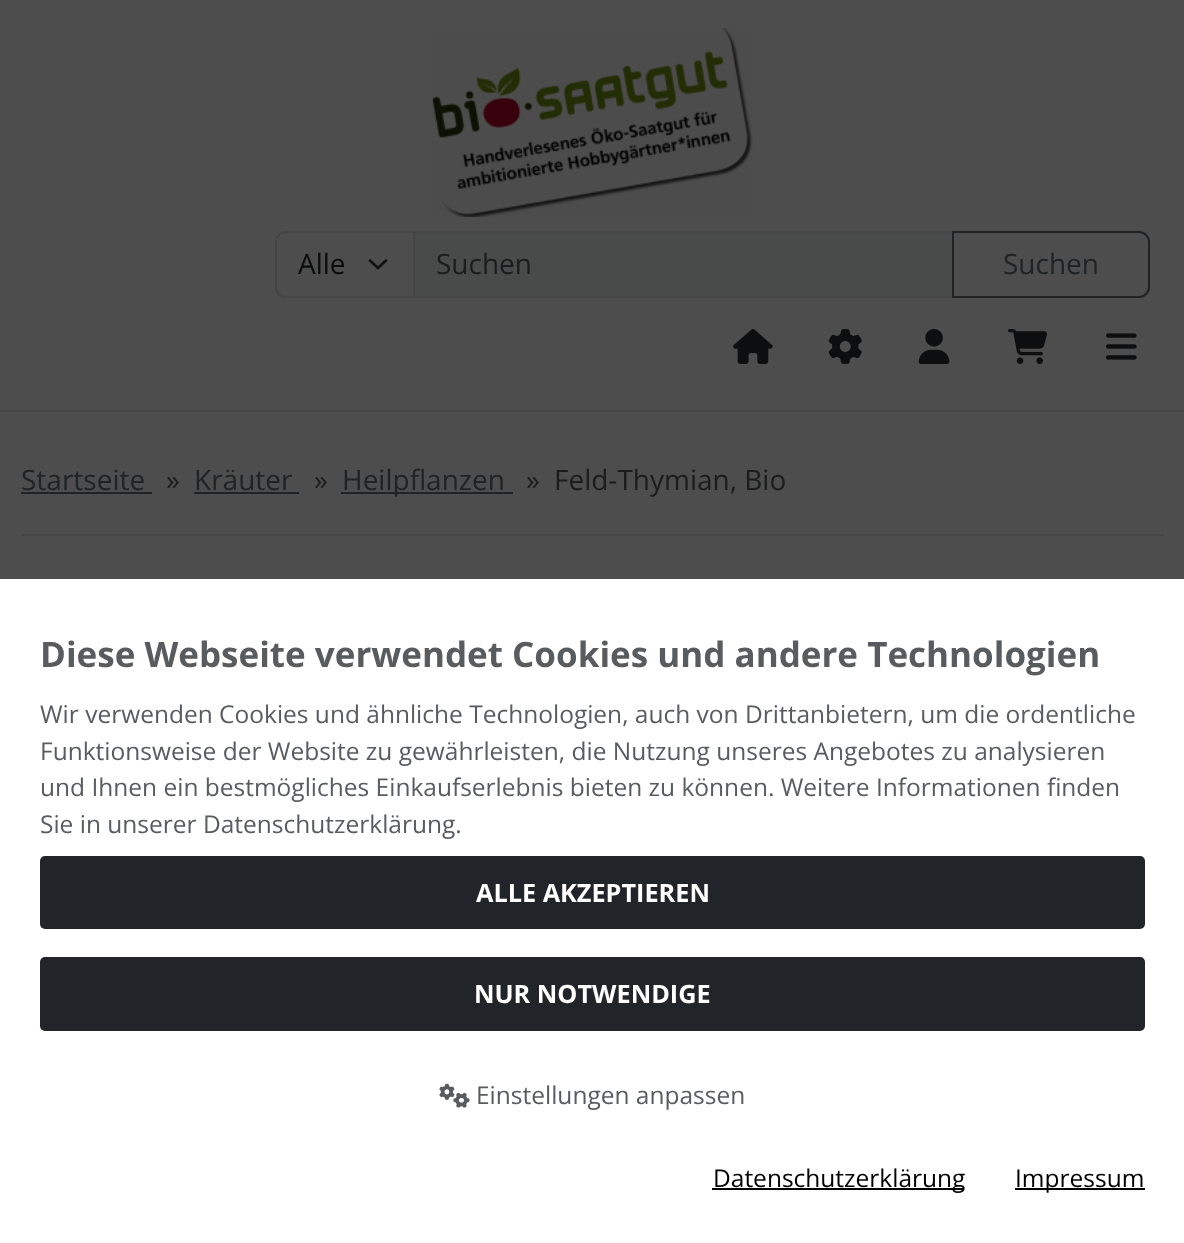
<?xml version="1.0" encoding="UTF-8"?>
<svg xmlns="http://www.w3.org/2000/svg" width="1184" height="1243">
    <rect width="100%" height="100%" fill="#4D4D4D"/>
    <rect x="0" y="410" width="1184" height="2" fill="#434445"/>
    <image x="431" y="28" width="322" height="189" href="img_01.png"/>
    <path d="M 370 260.5 L 378 268 L 386 260.5" fill="none" stroke="#101113" stroke-width="2.6" stroke-linecap="round" stroke-linejoin="round"/>
    <path d="M 286 232 H 414 V 297 H 286 C 280.5 297 276 292.5 276 287 V 242 C 276 236.5 280.5 232 286 232 Z" fill="none" stroke="#434445" stroke-width="2"/>
    <text x="298" y="274" font-family="Open Sans" font-size="28" fill="#0A0B0C">Alle</text>
    <rect x="414" y="232" width="539" height="65" fill="#494A4A" stroke="#434445" stroke-width="2"/>
    <text x="436" y="274" font-family="Open Sans" font-size="28" fill="#1B1C1D">Suchen</text>
    <path d="M 953 232 H 1139 C 1144.5 232 1149 236.5 1149 242 V 287 C 1149 292.5 1144.5 297 1139 297 H 953 Z" fill="none" stroke="#202326" stroke-width="2"/>
    <text x="1003" y="274" font-family="Open Sans" font-size="28" fill="#202326">Suchen</text>
    <image x="733" y="329" width="40" height="35" href="img_02.png"/>
    <image x="828" y="329" width="34" height="35" href="img_03.png"/>
    <image x="918" y="329" width="32" height="35" href="img_04.png"/>
    <image x="1008" y="329" width="39" height="35" href="img_05.png"/>
    <image x="1106" y="333" width="31" height="27" href="img_06.png"/>
    <rect x="21" y="534" width="1143" height="2" fill="#434445"/>
    <text x="21" y="490" font-family="Open Sans" font-size="28" fill="#202326">Startseite</text>
    <rect x="21" y="492" width="131" height="2" fill="#202326"/>
    <text x="166" y="490" font-family="Open Sans" font-size="28" fill="#1B1C1D">»</text>
    <text x="194" y="490" font-family="Open Sans" font-size="28" fill="#202326">Kräuter</text>
    <rect x="194" y="492" width="105" height="2" fill="#202326"/>
    <text x="314" y="490" font-family="Open Sans" font-size="28" fill="#1B1C1D">»</text>
    <rect x="341" y="492" width="172" height="2" fill="#202326"/>
    <text x="342" y="490" font-family="Open Sans" font-size="28" fill="#202326">Heilpflanzen</text>
    <text x="526" y="490" font-family="Open Sans" font-size="28" fill="#1B1C1D">»</text>
    <text x="554" y="490" font-family="Open Sans" font-size="28" fill="#1B1C1D">Feld-Thymian, Bio</text>
    <rect x="0" y="579" width="1184" height="664" fill="#FFFFFF"/>
    <text x="40" y="667" font-family="Open Sans" font-size="35" font-weight="700" fill="#595C5F">Diese Webseite verwendet Cookies und andere Technologien</text>
    <text font-family="Open Sans" font-size="24.5" fill="#595C5F">
        <tspan x="40" y="723">Wir verwenden Cookies und ähnliche Technologien, auch von Drittanbietern, um die ordentliche</tspan>
        <tspan x="40" y="760">Funktionsweise der Website zu gewährleisten, die Nutzung unseres Angebotes zu analysieren</tspan>
        <tspan x="40" y="796">und Ihnen ein bestmögliches Einkaufserlebnis bieten zu können. Weitere Informationen finden</tspan>
        <tspan x="40" y="833">Sie in unserer Datenschutzerklärung.</tspan>
    </text>
    <rect x="40" y="856" width="1105" height="73" rx="5" fill="#212529"/>
    <text x="476" y="902" font-family="Open Sans" font-size="25.25" font-weight="700" fill="#FFFFFF">ALLE AKZEPTIEREN</text>
    <rect x="40" y="957" width="1105" height="74" rx="5" fill="#212529"/>
    <text x="474" y="1003" font-family="Open Sans" font-size="25.25" font-weight="700" fill="#FFFFFF">NUR NOTWENDIGE</text>
    <image x="439" y="1083" width="31" height="25" href="img_07.png"/>
    <text x="476" y="1104" font-family="Open Sans" font-size="24.5" fill="#595C5F">Einstellungen anpassen</text>
    <rect x="712" y="1188" width="252" height="2" fill="#000000"/>
    <text x="713" y="1187" font-family="Open Sans" font-size="24.5" fill="#000000">Datenschutzerklärung</text>
    <rect x="1015" y="1188" width="130" height="2" fill="#000000"/>
    <text x="1015" y="1187" font-family="Open Sans" font-size="24.5" fill="#000000">Impressum</text>
</svg>
